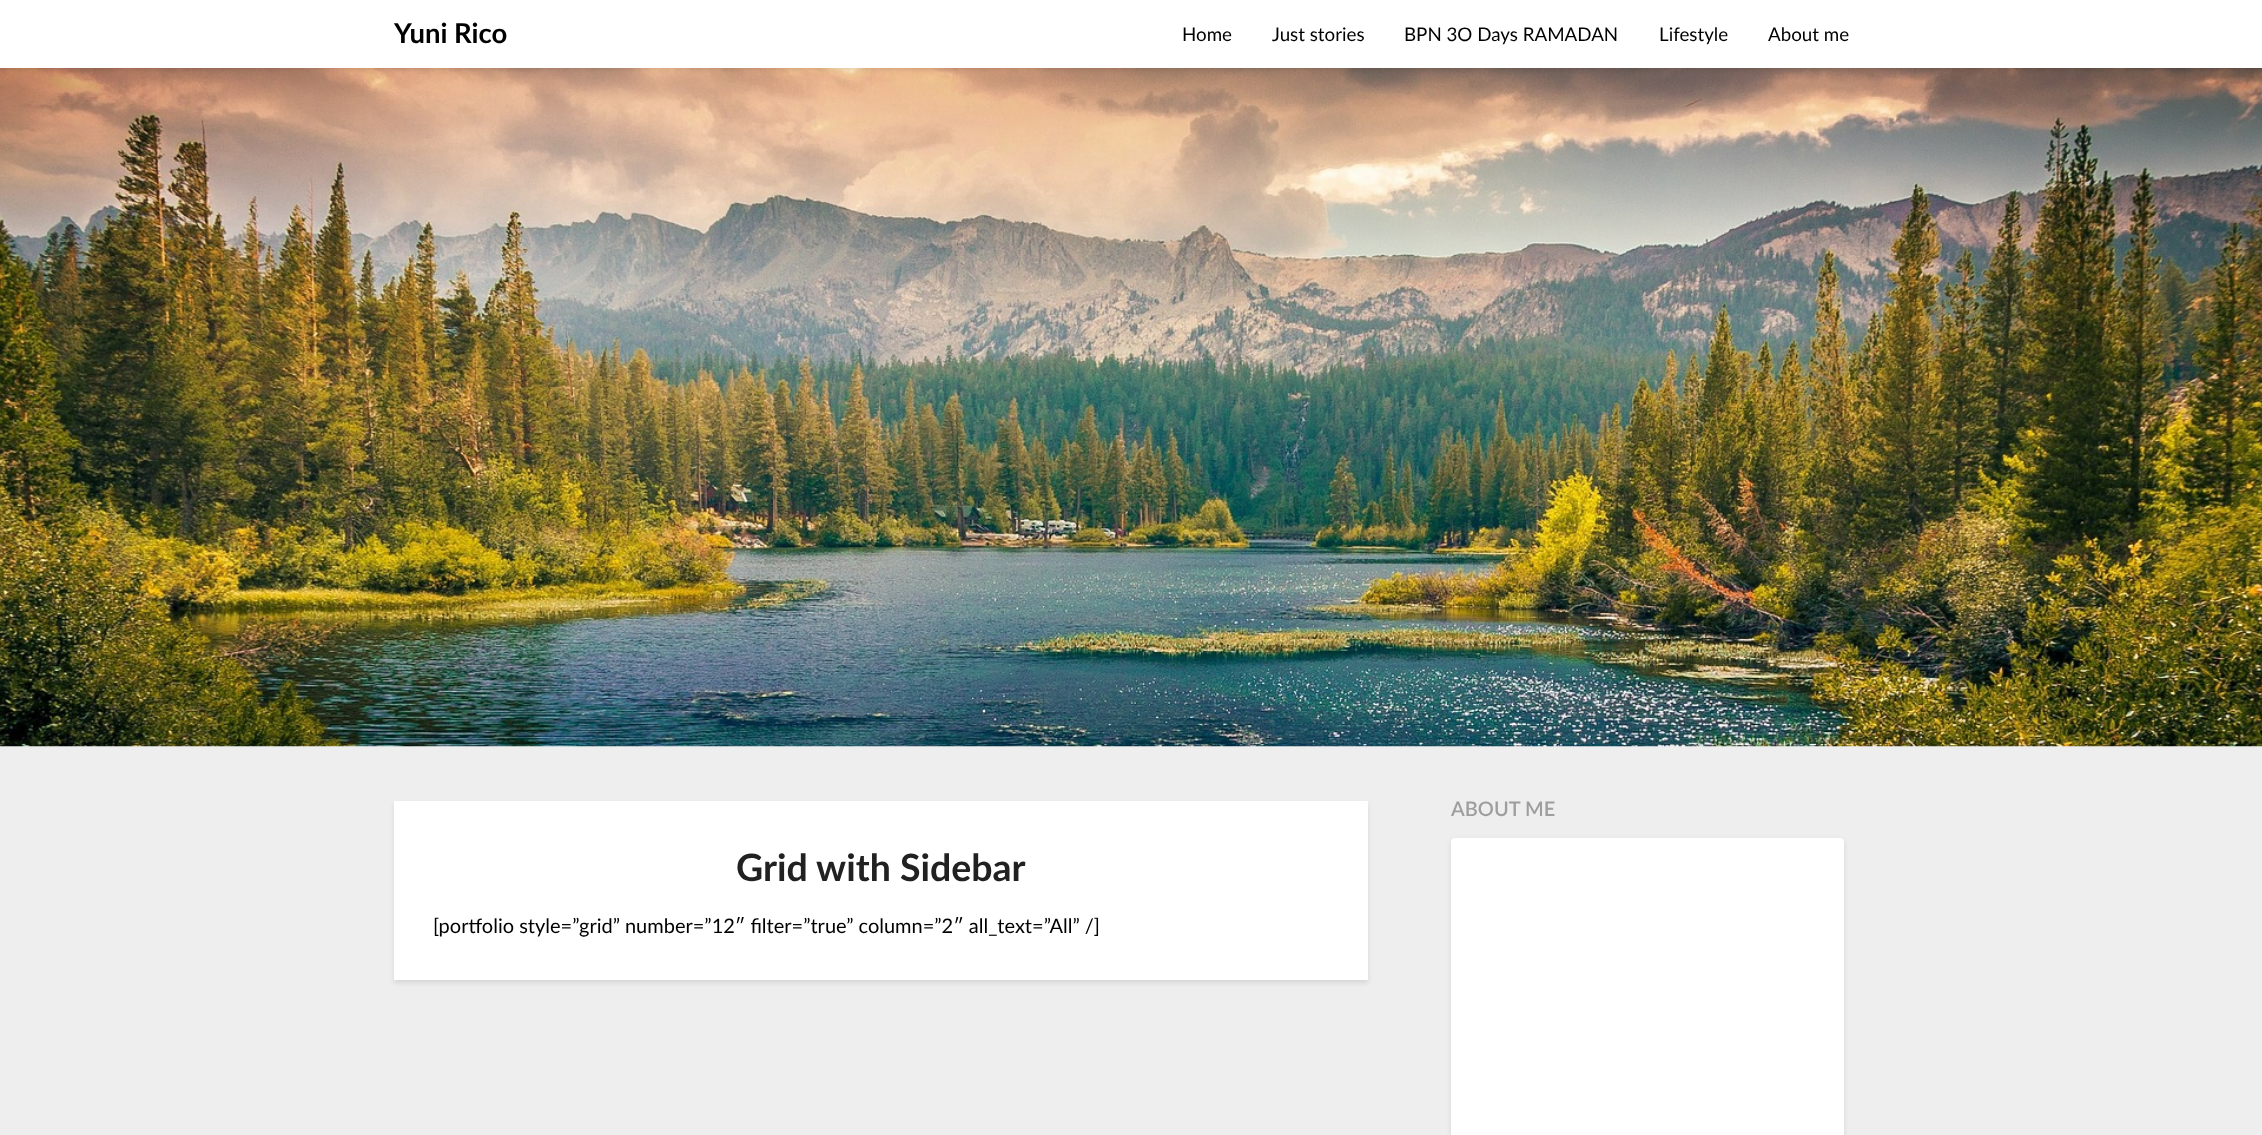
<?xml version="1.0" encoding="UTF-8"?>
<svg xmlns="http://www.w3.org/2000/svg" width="2262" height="1135">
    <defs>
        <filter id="blur1" x="-50%" y="-200%" width="200%" height="500%"><feGaussianBlur stdDeviation="2.5"/></filter>
    </defs>
    <rect width="100%" height="100%" fill="#EEEEEE"/>
    <image x="0" y="68" width="2262" height="679" href="img_01.png"/>
    <rect x="0" y="3" width="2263" height="67" fill="#000000" fill-opacity="0.1" filter="url(#blur1)"/>
    <rect x="0" y="0" width="2262" height="68" fill="#FFFFFF"/>
    <text x="394" y="43" font-family="Lato" font-size="27.5" font-weight="700" fill="#000000">Yuni Rico</text>
    <text x="1182" y="41" font-family="Lato" font-size="18.75" fill="#000000">Home</text>
    <text x="1272" y="41" font-family="Lato" font-size="18.75" fill="#000000">Just stories</text>
    <text x="1404" y="41" font-family="Lato" font-size="18.75" fill="#000000">BPN 3O Days RAMADAN</text>
    <text x="1659" y="41" font-family="Lato" font-size="18.75" fill="#000000">Lifestyle</text>
    <text x="1768" y="41" font-family="Lato" font-size="18.75" fill="#000000">About me</text>
    <text x="1451" y="816" font-family="Lato" font-size="20" font-weight="600" fill="#9E9E9E">ABOUT ME</text>
    <rect x="1451" y="840" width="393" height="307" rx="4" fill="#000000" fill-opacity="0.1" filter="url(#blur1)"/>
    <rect x="1451" y="838" width="393" height="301" rx="4" fill="#FFFFFF"/>
    <rect x="394" y="804" width="974" height="179" rx="1" fill="#000000" fill-opacity="0.1" filter="url(#blur1)"/>
    <rect x="394" y="801" width="974" height="179" rx="1" fill="#FFFFFF"/>
    <text x="736" y="881" font-family="Lato" font-size="37.5" font-weight="700" fill="#212121">Grid with Sidebar</text>
    <text x="433" y="933" font-family="Lato" font-size="20" fill="#000000">[portfolio style=”grid” number=”12″ filter=”true” column=”2″ all_text=”All” /]</text>
</svg>
